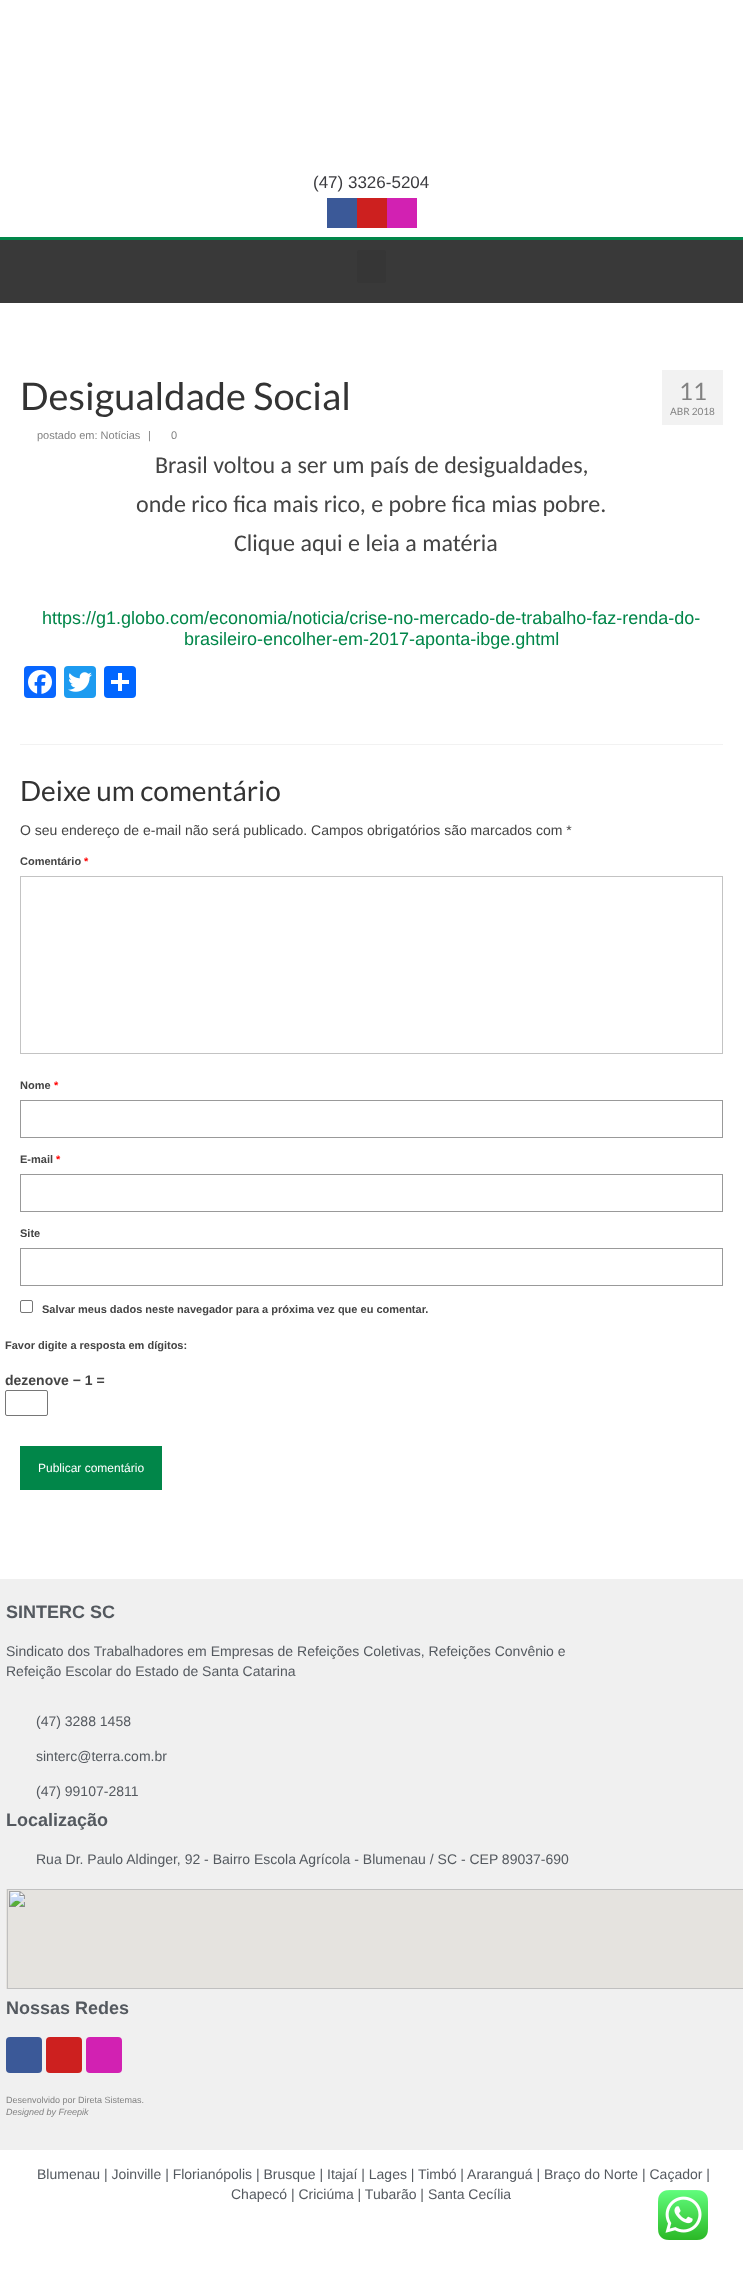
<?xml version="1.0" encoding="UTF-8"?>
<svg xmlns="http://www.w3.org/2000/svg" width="743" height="2275">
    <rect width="100%" height="100%" fill="#FFFFFF"/>
    <text x="313" y="188" font-family="Liberation Sans" font-size="17" fill="#3B3B3F">(47) 3326-5204</text>
    <rect x="327" y="198" width="30" height="30" fill="#3B5998"/>
    <rect x="357" y="198" width="30" height="30" fill="#CD201F"/>
    <rect x="387" y="198" width="30" height="30" fill="#D221B2"/>
    <rect x="0" y="240" width="743" height="63" fill="#393939"/>
    <rect x="0" y="237" width="743" height="3" fill="#018649"/>
    <rect x="357" y="250" width="29" height="33" rx="3" fill="#363636"/>
    <text x="20" y="410" font-family="Lato" font-size="38" fill="#333333">Desigualdade Social</text>
    <text x="37" y="439" font-family="Liberation Sans" font-size="11" fill="#828282">postado em: Notícias</text>
    <text x="148" y="439" font-family="Liberation Sans" font-size="11" fill="#828282">|</text>
    <text x="171" y="439" font-family="Liberation Sans" font-size="11" fill="#828282">0</text>
    <rect x="662" y="370" width="61" height="55" fill="#F2F2F2"/>
    <text x="679" y="400" font-family="Lato" font-size="24" fill="#828282">11</text>
    <text x="670" y="415" font-family="Lato" font-size="10" fill="#828282">ABR 2018</text>
    <text x="155" y="473" font-family="Carlito" font-size="24" fill="#444444">Brasil voltou a ser um país de desigualdades,</text>
    <text x="136" y="512" font-family="Carlito" font-size="24" fill="#444444">onde rico fica mais rico, e pobre fica mias pobre.</text>
    <text x="234" y="551" font-family="Carlito" font-size="24" fill="#444444">Clique aqui e leia a matéria</text>
    <text x="42" y="624" font-family="Liberation Sans" font-size="18" fill="#018649">https://g1.globo.com/economia/noticia/crise-no-mercado-de-trabalho-faz-renda-do-</text>
    <text x="184" y="645" font-family="Liberation Sans" font-size="18" fill="#018649">brasileiro-encolher-em-2017-aponta-ibge.ghtml</text>
    <rect x="24" y="666" width="32" height="32" rx="4" fill="#0866FF"/>
    <image x="28" y="670" width="24" height="24" href="img_01.png"/>
    <rect x="64" y="666" width="32" height="32" rx="4" fill="#1D9BF0"/>
    <image x="68" y="672" width="24" height="20" href="img_02.png"/>
    <rect x="104" y="666" width="32" height="32" rx="4" fill="#0166FF"/>
    <rect x="118" y="673" width="4" height="18" fill="#FFFFFF"/>
    <rect x="111" y="680" width="18" height="4" fill="#FFFFFF"/>
    <rect x="20" y="744" width="703" height="1" fill="#F2F2F2"/>
    <text x="20" y="801" font-family="Lato" font-size="28" fill="#333333">Deixe um comentário</text>
    <text x="20" y="835" font-family="Liberation Sans" font-size="14" fill="#444444">O seu endereço de e-mail não será publicado. Campos obrigatórios são marcados com *</text>
    <text x="20" y="865" font-family="Liberation Sans" font-size="11" font-weight="700" fill="#444444">Comentário</text>
    <text x="84" y="865" font-family="Liberation Sans" font-size="11" font-weight="700" fill="#FF0000">*</text>
    <rect x="20.5" y="876.5" width="702" height="177" fill="none" stroke="#C3C3C3"/>
    <text x="20" y="1089" font-family="Liberation Sans" font-size="11" font-weight="700" fill="#444444">Nome</text>
    <text x="54" y="1089" font-family="Liberation Sans" font-size="11" font-weight="700" fill="#FF0000">*</text>
    <rect x="20.5" y="1100.5" width="702" height="37" fill="none" stroke="#999999"/>
    <text x="20" y="1163" font-family="Liberation Sans" font-size="11" font-weight="700" fill="#444444">E-mail</text>
    <text x="56" y="1163" font-family="Liberation Sans" font-size="11" font-weight="700" fill="#FF0000">*</text>
    <rect x="20.5" y="1174.5" width="702" height="37" fill="none" stroke="#999999"/>
    <text x="20" y="1237" font-family="Liberation Sans" font-size="11" font-weight="700" fill="#444444">Site</text>
    <rect x="20.5" y="1248.5" width="702" height="37" fill="none" stroke="#999999"/>
    <rect x="20.5" y="1300.5" width="12" height="12" rx="1.5" fill="none" stroke="#767676"/>
    <text x="42" y="1313" font-family="Liberation Sans" font-size="11" font-weight="700" fill="#444444">Salvar meus dados neste navegador para a próxima vez que eu comentar.</text>
    <text x="5" y="1349" font-family="Liberation Sans" font-size="11" font-weight="700" fill="#444444">Favor digite a resposta em dígitos:</text>
    <text x="5" y="1385" font-family="Liberation Sans" font-size="14" font-weight="700" fill="#444444">dezenove − 1 =</text>
    <rect x="5.5" y="1390.5" width="42" height="25" rx="1.5" fill="none" stroke="#767676"/>
    <rect x="20" y="1446" width="142" height="44" fill="#018649"/>
    <text x="38" y="1472" font-family="Liberation Sans" font-size="12" fill="#FFFFFF">Publicar comentário</text>
    <rect x="0" y="1579" width="743" height="571" fill="#F0F0F0"/>
    <text x="6" y="1618" font-family="Liberation Sans" font-size="18" font-weight="700" fill="#54595F">SINTERC SC</text>
    <text font-family="Liberation Sans" font-size="14" fill="#54595F">
        <tspan x="6" y="1656">Sindicato dos Trabalhadores em Empresas de Refeições Coletivas, Refeições Convênio e</tspan>
        <tspan x="6" y="1676">Refeição Escolar do Estado de Santa Catarina</tspan>
    </text>
    <text x="36" y="1726" font-family="Liberation Sans" font-size="14" fill="#54595F">(47) 3288 1458</text>
    <text x="36" y="1761" font-family="Liberation Sans" font-size="14" fill="#54595F">sinterc@terra.com.br</text>
    <text x="36" y="1796" font-family="Liberation Sans" font-size="14" fill="#54595F">(47) 99107-2811</text>
    <text x="6" y="1826" font-family="Liberation Sans" font-size="18" font-weight="700" fill="#54595F">Localização</text>
    <text x="36" y="1864" font-family="Liberation Sans" font-size="14" fill="#54595F">Rua Dr. Paulo Aldinger, 92 - Bairro Escola Agrícola - Blumenau / SC - CEP 89037-690</text>
    <image x="6" y="1889" width="737" height="100" href="img_03.png"/>
    <text x="6" y="2014" font-family="Liberation Sans" font-size="18" font-weight="700" fill="#54595F">Nossas Redes</text>
    <rect x="6" y="2037" width="36" height="36" rx="4" fill="#3B5998"/>
    <rect x="46" y="2037" width="36" height="36" rx="4" fill="#CD201F"/>
    <rect x="86" y="2037" width="36" height="36" rx="4" fill="#D221B2"/>
    <text x="6" y="2103" font-family="Liberation Sans" font-size="9" fill="#828282">Desenvolvido por Direta Sistemas.</text>
    <text x="6" y="2115" font-family="Liberation Sans" font-size="9" font-style="italic" fill="#828282">Designed by Freepik</text>
    <text x="37" y="2179" font-family="Liberation Sans" font-size="14" fill="#54595F">Blumenau | Joinville | Florianópolis | Brusque | Itajaí | Lages | Timbó | Araranguá | Braço do Norte | Caçador |</text>
    <text x="231" y="2199" font-family="Liberation Sans" font-size="14" fill="#54595F">Chapecó | Criciúma | Tubarão | Santa Cecília</text>
    <image x="658" y="2190" width="50" height="50" href="img_04.png"/>
</svg>
